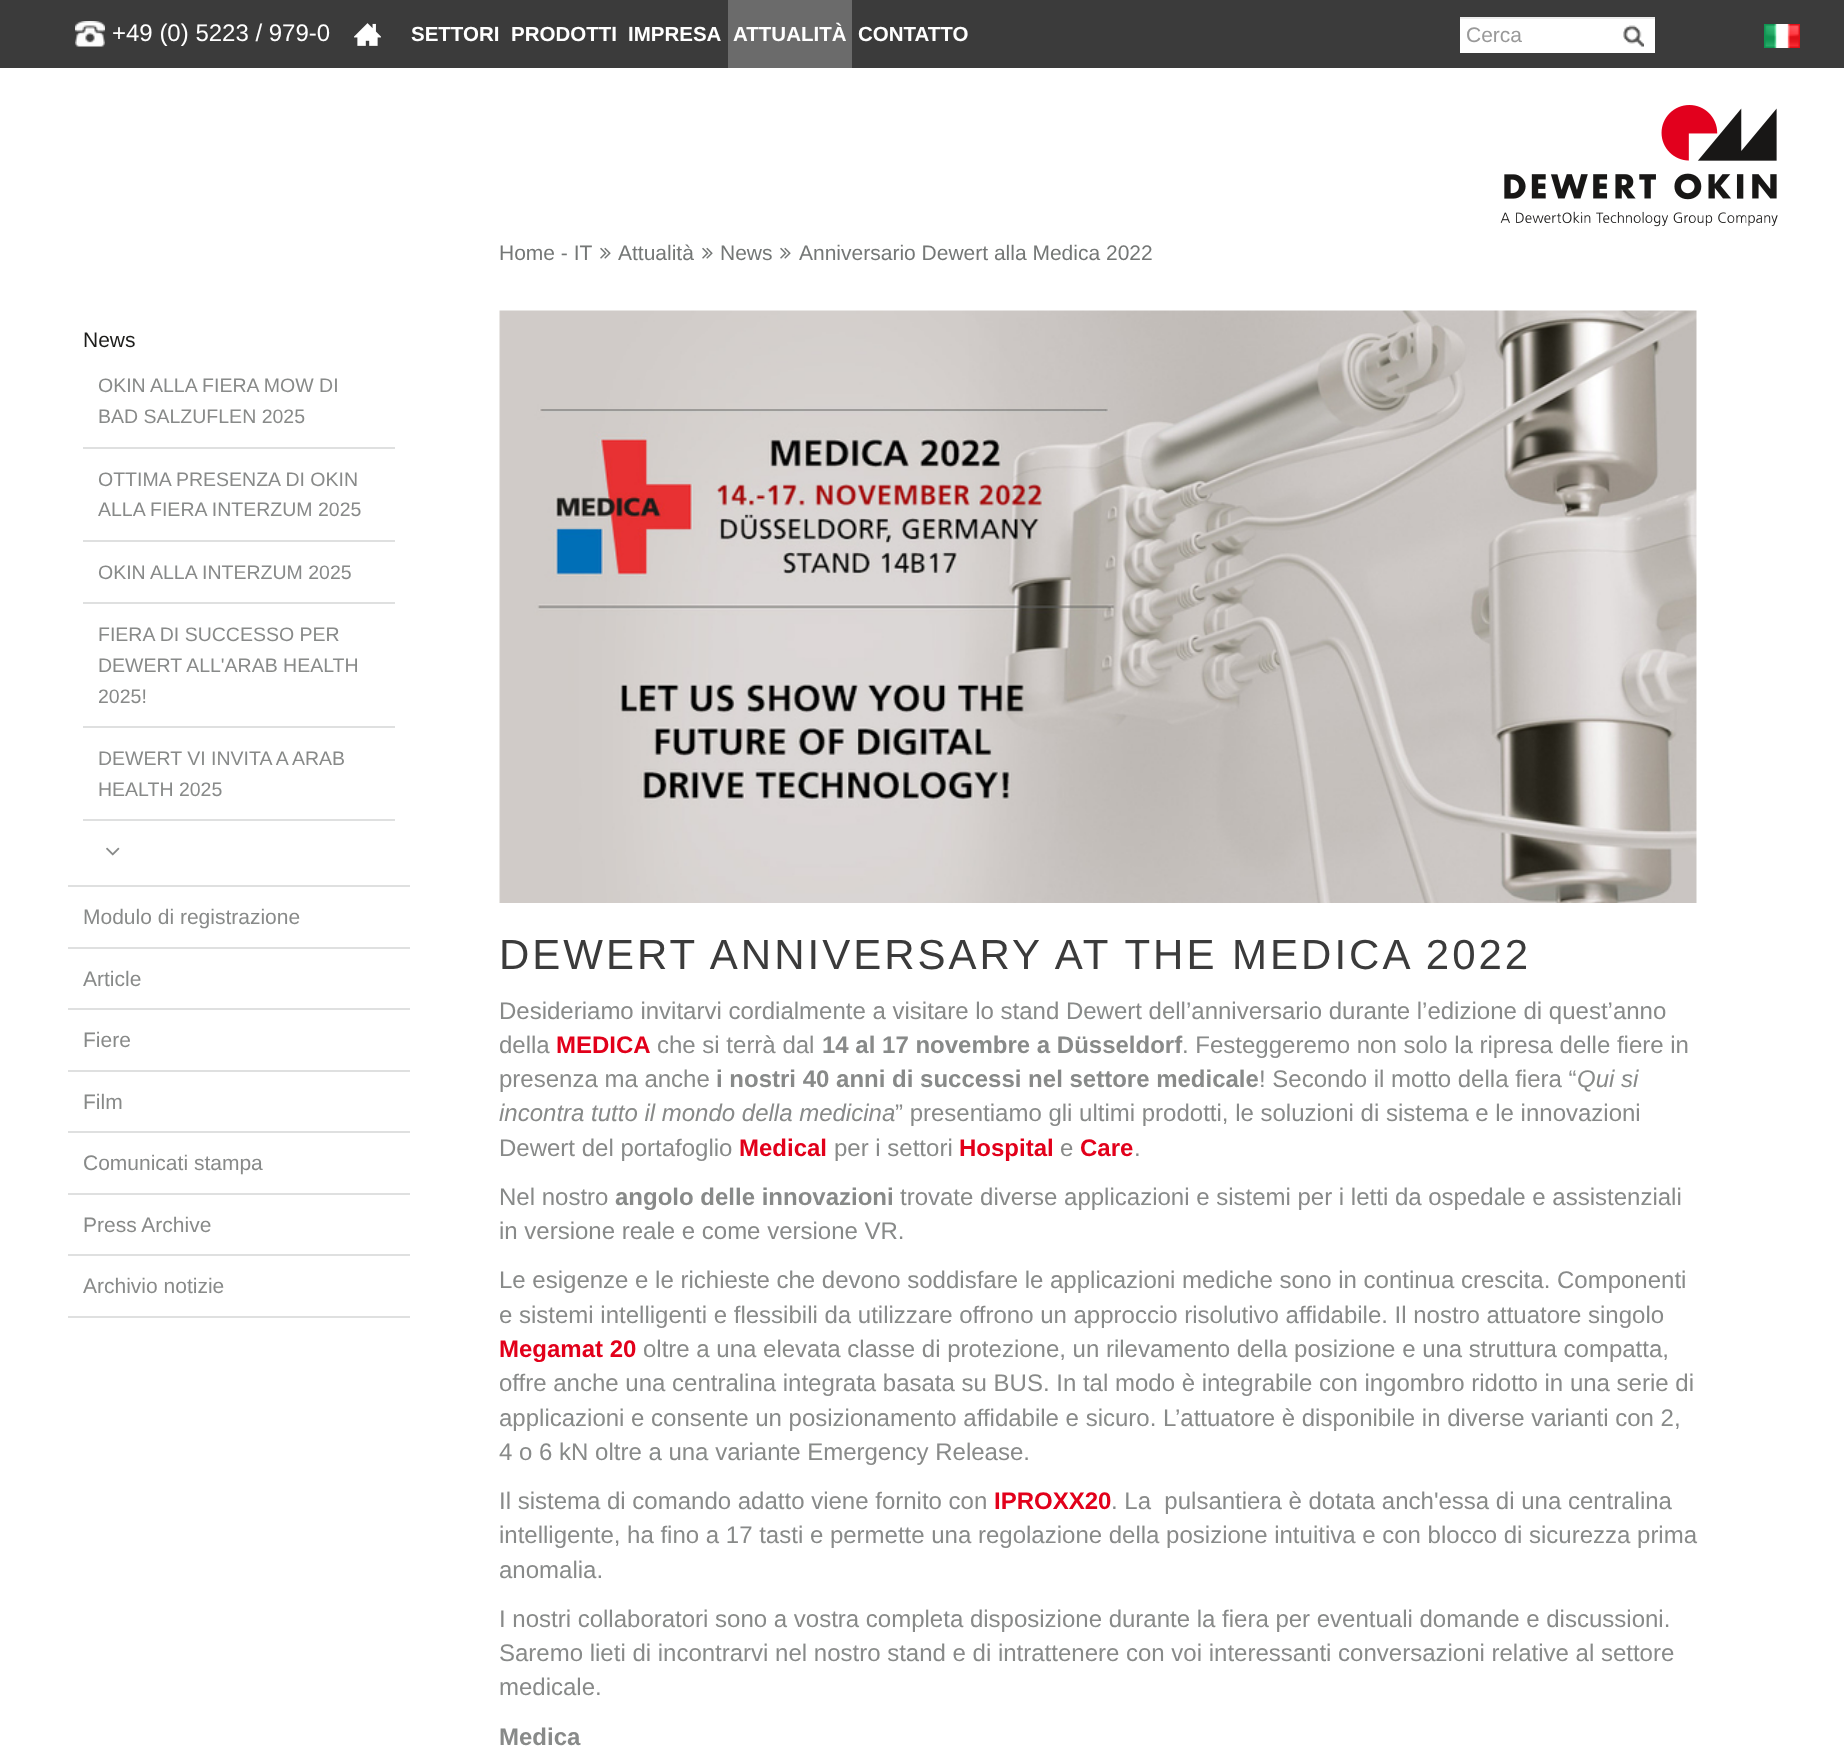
<?xml version="1.0" encoding="UTF-8"?>
<svg xmlns="http://www.w3.org/2000/svg" width="1844" height="1751">
    <rect width="100%" height="100%" fill="#FFFFFF"/>
    <rect x="0" y="0" width="1844" height="68" fill="#3B3B3B"/>
    <image x="75" y="21" width="30" height="26" href="img_01.png"/>
    <text x="112" y="41" font-family="Liberation Sans" font-size="24" fill="#FFFFFF">+49 (0) 5223 / 979-0</text>
    <image x="354" y="23" width="27" height="23" href="img_02.png"/>
    <text x="411" y="41" font-family="Liberation Sans" font-size="20.5" font-weight="700" fill="#FFFFFF">SETTORI</text>
    <text x="511" y="41" font-family="Liberation Sans" font-size="20.5" font-weight="700" fill="#FFFFFF">PRODOTTI</text>
    <text x="628" y="41" font-family="Liberation Sans" font-size="20.5" font-weight="700" fill="#FFFFFF">IMPRESA</text>
    <rect x="728" y="0" width="124" height="68" fill="#6B6B6B"/>
    <text x="733" y="41" font-family="Liberation Sans" font-size="20.5" font-weight="700" fill="#FFFFFF">ATTUALITÀ</text>
    <text x="858" y="41" font-family="Liberation Sans" font-size="20.5" font-weight="700" fill="#FFFFFF">CONTATTO</text>
    <rect x="1460" y="19" width="195" height="34" fill="#FFFFFF"/>
    <image x="1623" y="25" width="21" height="22" href="img_03.png"/>
    <rect x="1460" y="17" width="195" height="2" fill="#ECECEC"/>
    <text x="1466" y="42" font-family="Liberation Sans" font-size="21" fill="#999999">Cerca</text>
    <image x="1764" y="24" width="36" height="24" href="img_04.png"/>
    <image x="1500" y="105" width="278" height="122" href="img_05.png"/>
    <text x="499" y="260" font-family="Liberation Sans" font-size="21" fill="#747776">Home - IT</text>
    <image x="600" y="247" width="11" height="12" href="img_06.png"/>
    <text x="618" y="260" font-family="Liberation Sans" font-size="21" fill="#747776">Attualità</text>
    <image x="702" y="247" width="11" height="12" href="img_06.png"/>
    <text x="720" y="260" font-family="Liberation Sans" font-size="21" fill="#747776">News</text>
    <image x="780" y="247" width="11" height="12" href="img_06.png"/>
    <text x="799" y="260" font-family="Liberation Sans" font-size="21" fill="#747776">Anniversario Dewert alla Medica 2022</text>
    <rect x="68" y="885" width="342" height="2" fill="#DFE0E0"/>
    <text x="83" y="347" font-family="Liberation Sans" font-size="21" fill="#1D1D1B">News</text>
    <rect x="83" y="447" width="312" height="2" fill="#DFE0E0"/>
    <text font-family="Liberation Sans" font-size="19.5" fill="#888A89">
        <tspan x="98" y="392">OKIN ALLA FIERA MOW DI</tspan>
        <tspan x="98" y="423">BAD SALZUFLEN 2025</tspan>
    </text>
    <rect x="83" y="540" width="312" height="2" fill="#DFE0E0"/>
    <text font-family="Liberation Sans" font-size="19.5" fill="#888A89">
        <tspan x="98" y="486">OTTIMA PRESENZA DI OKIN</tspan>
        <tspan x="98" y="516">ALLA FIERA INTERZUM 2025</tspan>
    </text>
    <rect x="83" y="602" width="312" height="2" fill="#DFE0E0"/>
    <text x="98" y="579" font-family="Liberation Sans" font-size="19.5" fill="#888A89">OKIN ALLA INTERZUM 2025</text>
    <rect x="83" y="726" width="312" height="2" fill="#DFE0E0"/>
    <text font-family="Liberation Sans" font-size="19.5" fill="#888A89">
        <tspan x="98" y="641">FIERA DI SUCCESSO PER</tspan>
        <tspan x="98" y="672">DEWERT ALL'ARAB HEALTH</tspan>
        <tspan x="98" y="703">2025!</tspan>
    </text>
    <rect x="83" y="819" width="312" height="2" fill="#DFE0E0"/>
    <text font-family="Liberation Sans" font-size="19.5" fill="#888A89">
        <tspan x="98" y="765">DEWERT VI INVITA A ARAB</tspan>
        <tspan x="98" y="796">HEALTH 2025</tspan>
    </text>
    <image x="106" y="847" width="14" height="9" href="img_07.png"/>
    <rect x="68" y="947" width="342" height="2" fill="#DFE0E0"/>
    <text x="83" y="924" font-family="Liberation Sans" font-size="21" fill="#888A89">Modulo di registrazione</text>
    <rect x="68" y="1008" width="342" height="2" fill="#DFE0E0"/>
    <text x="83" y="986" font-family="Liberation Sans" font-size="21" fill="#888A89">Article</text>
    <rect x="68" y="1070" width="342" height="2" fill="#DFE0E0"/>
    <text x="83" y="1047" font-family="Liberation Sans" font-size="21" fill="#888A89">Fiere</text>
    <rect x="68" y="1131" width="342" height="2" fill="#DFE0E0"/>
    <text x="83" y="1109" font-family="Liberation Sans" font-size="21" fill="#888A89">Film</text>
    <rect x="68" y="1193" width="342" height="2" fill="#DFE0E0"/>
    <text x="83" y="1170" font-family="Liberation Sans" font-size="21" fill="#888A89">Comunicati stampa</text>
    <rect x="68" y="1254" width="342" height="2" fill="#DFE0E0"/>
    <text x="83" y="1232" font-family="Liberation Sans" font-size="21" fill="#888A89">Press Archive</text>
    <rect x="68" y="1316" width="342" height="2" fill="#DFE0E0"/>
    <text x="83" y="1293" font-family="Liberation Sans" font-size="21" fill="#888A89">Archivio notizie</text>
    <image x="499" y="310" width="1198" height="593" href="img_08.png"/>
    <text x="499" y="969" font-family="Liberation Sans" font-size="42" letter-spacing="3" fill="#3B3B3B">DEWERT ANNIVERSARY AT THE MEDICA 2022</text>
    <text font-family="Liberation Sans" font-size="24" fill="#888A89">
        <tspan x="499" y="1019">Desideriamo invitarvi cordialmente a visitare lo stand Dewert dell’anniversario durante l’edizione di quest’anno</tspan>
        <tspan x="499" y="1053">della</tspan>
    </text>
    <text x="556" y="1053" font-family="Liberation Sans" font-size="24" font-weight="700" fill="#E2001A">MEDICA</text>
    <text x="657" y="1053" font-family="Liberation Sans" font-size="24" fill="#888A89">che si terrà dal</text>
    <text x="822" y="1053" font-family="Liberation Sans" font-size="24" font-weight="700" fill="#888A89">14 al 17 novembre a Düsseldorf</text>
    <text x="1182" y="1053" font-family="Liberation Sans" font-size="24" fill="#888A89">. Festeggeremo non solo la ripresa delle fiere in</text>
    <text x="499" y="1087" font-family="Liberation Sans" font-size="24" fill="#888A89">presenza ma anche</text>
    <text x="716" y="1087" font-family="Liberation Sans" font-size="24" font-weight="700" fill="#888A89">i nostri 40 anni di successi nel settore medicale</text>
    <text x="1259" y="1087" font-family="Liberation Sans" font-size="24" fill="#888A89">! Secondo il motto della fiera “</text>
    <text x="1577" y="1087" font-family="Liberation Sans" font-size="24" font-style="italic" fill="#888A89">Qui si</text>
    <text x="499" y="1121" font-family="Liberation Sans" font-size="24" font-style="italic" fill="#888A89">incontra tutto il mondo della medicina</text>
    <text x="895" y="1121" font-family="Liberation Sans" font-size="24" fill="#888A89">” presentiamo gli ultimi prodotti, le soluzioni di sistema e le innovazioni</text>
    <text x="499" y="1156" font-family="Liberation Sans" font-size="24" fill="#888A89">Dewert del portafoglio</text>
    <text x="739" y="1156" font-family="Liberation Sans" font-size="24" font-weight="700" fill="#E2001A">Medical</text>
    <text x="834" y="1156" font-family="Liberation Sans" font-size="24" fill="#888A89">per i settori</text>
    <text x="959" y="1156" font-family="Liberation Sans" font-size="24" font-weight="700" fill="#E2001A">Hospital</text>
    <text x="1060" y="1156" font-family="Liberation Sans" font-size="24" fill="#888A89">e</text>
    <text x="1080" y="1156" font-family="Liberation Sans" font-size="24" font-weight="700" fill="#E2001A">Care</text>
    <text x="1134" y="1156" font-family="Liberation Sans" font-size="24" fill="#888A89">.</text>
    <text x="499" y="1205" font-family="Liberation Sans" font-size="24" fill="#888A89">Nel nostro</text>
    <text x="615" y="1205" font-family="Liberation Sans" font-size="24" font-weight="700" fill="#888A89">angolo delle innovazioni</text>
    <text x="900" y="1205" font-family="Liberation Sans" font-size="24" fill="#888A89">trovate diverse applicazioni e sistemi per i letti da ospedale e assistenziali</text>
    <text x="499" y="1239" font-family="Liberation Sans" font-size="24" fill="#888A89">in versione reale e come versione VR.</text>
    <text font-family="Liberation Sans" font-size="24" fill="#888A89">
        <tspan x="499" y="1288">Le esigenze e le richieste che devono soddisfare le applicazioni mediche sono in continua crescita. Componenti</tspan>
        <tspan x="499" y="1323">e sistemi intelligenti e flessibili da utilizzare offrono un approccio risolutivo affidabile. Il nostro attuatore singolo</tspan>
    </text>
    <text x="499" y="1357" font-family="Liberation Sans" font-size="24" font-weight="700" fill="#E2001A">Megamat 20</text>
    <text x="643" y="1357" font-family="Liberation Sans" font-size="24" fill="#888A89">oltre a una elevata classe di protezione, un rilevamento della posizione e una struttura compatta,</text>
    <text font-family="Liberation Sans" font-size="24" fill="#888A89">
        <tspan x="499" y="1391">offre anche una centralina integrata basata su BUS. In tal modo è integrabile con ingombro ridotto in una serie di</tspan>
        <tspan x="499" y="1426">applicazioni e consente un posizionamento affidabile e sicuro. L’attuatore è disponibile in diverse varianti con 2,</tspan>
        <tspan x="499" y="1460">4 o 6 kN oltre a una variante Emergency Release.</tspan>
    </text>
    <text x="499" y="1509" font-family="Liberation Sans" font-size="24" fill="#888A89">Il sistema di comando adatto viene fornito con</text>
    <text x="994" y="1509" font-family="Liberation Sans" font-size="24" font-weight="700" fill="#E2001A">IPROXX20</text>
    <text x="1111" y="1509" font-family="Liberation Sans" font-size="24" fill="#888A89" xml:space="preserve">. La  pulsantiera è dotata anch'essa di una centralina</text>
    <text font-family="Liberation Sans" font-size="24" fill="#888A89">
        <tspan x="499" y="1543">intelligente, ha fino a 17 tasti e permette una regolazione della posizione intuitiva e con blocco di sicurezza prima</tspan>
        <tspan x="499" y="1578">anomalia.</tspan>
    </text>
    <text font-family="Liberation Sans" font-size="24" fill="#888A89">
        <tspan x="499" y="1627">I nostri collaboratori sono a vostra completa disposizione durante la fiera per eventuali domande e discussioni.</tspan>
        <tspan x="499" y="1661">Saremo lieti di incontrarvi nel nostro stand e di intrattenere con voi interessanti conversazioni relative al settore</tspan>
        <tspan x="499" y="1695">medicale.</tspan>
    </text>
    <text x="499" y="1745" font-family="Liberation Sans" font-size="24" font-weight="700" fill="#888A89">Medica</text>
</svg>
